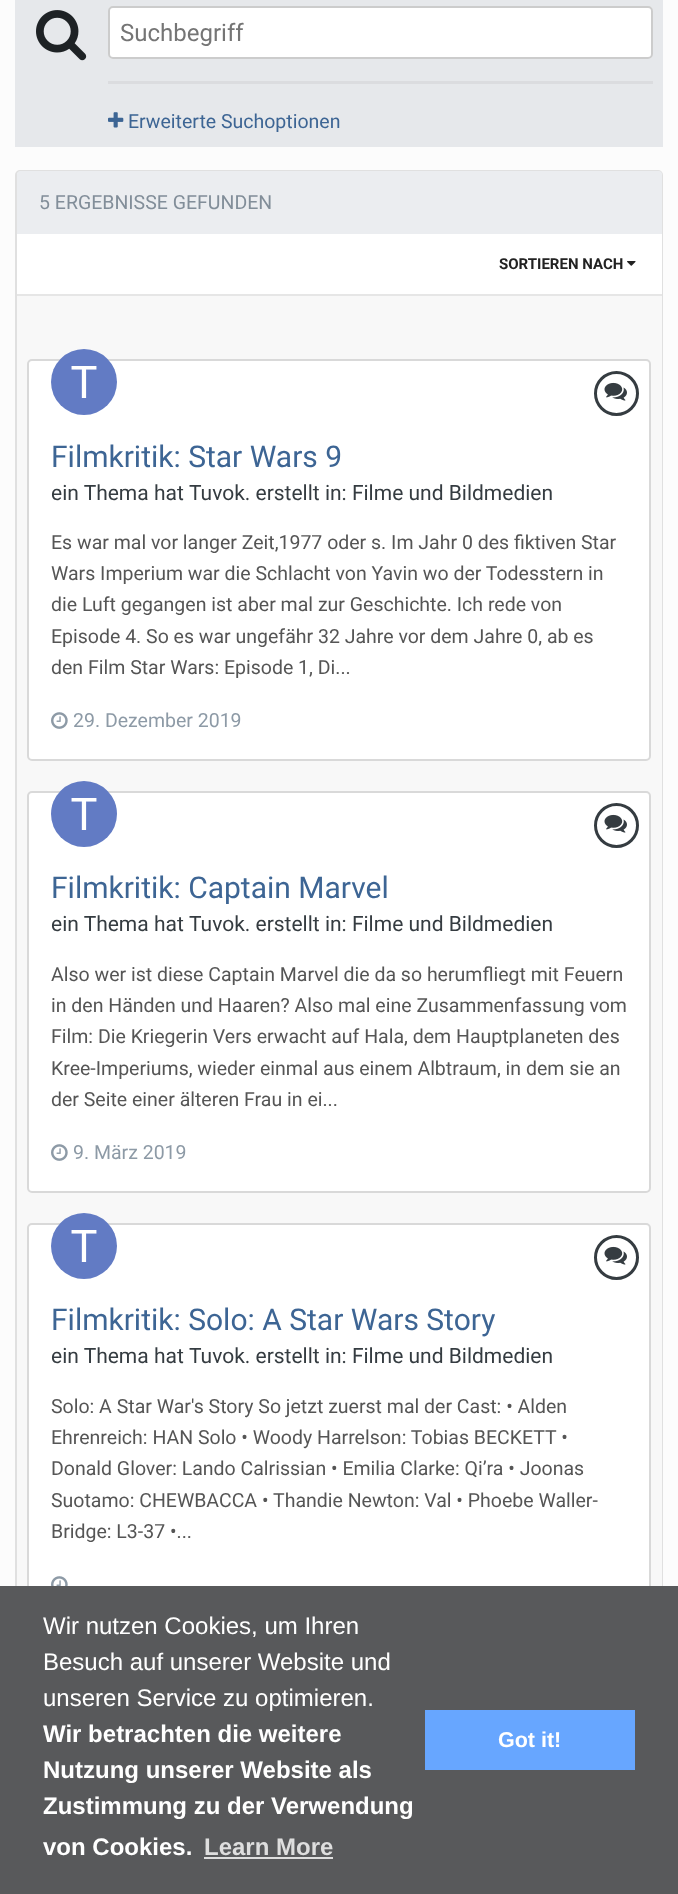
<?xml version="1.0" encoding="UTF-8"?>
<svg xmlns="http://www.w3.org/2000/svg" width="678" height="1894">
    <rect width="100%" height="100%" fill="#FCFCFC"/>
    <rect x="15" y="0" width="648" height="147" fill="#E6E8EB"/>
    <image x="36" y="10" width="51" height="51" href="img_01.png"/>
    <rect x="108" y="6" width="545" height="53" rx="5" fill="#FFFFFF"/>
    <rect x="109" y="7" width="543" height="51" rx="4" fill="none" stroke="#000000" stroke-opacity="0.2" stroke-width="2"/>
    <text x="120" y="41" font-family="Roboto" font-size="24" fill="#757575">Suchbegriff</text>
    <rect x="108" y="81" width="545" height="3" fill="#DBDCDF"/>
    <image x="108" y="112" width="16" height="16" href="img_02.png"/>
    <text x="128" y="128" font-family="Roboto" font-size="19.5" fill="#3D6594">Erweiterte Suchoptionen</text>
    <rect x="16" y="171" width="646" height="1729" rx="4" fill="none" stroke="#E0E0E0" stroke-width="2"/>
    <path d="M 20 171 H 659 C 660.5 171 662 172.5 662 174 V 234 H 17 V 174 C 17 172.5 18.5 171 20 171 Z" fill="#EBEDF0"/>
    <text x="39" y="209" font-family="Roboto" font-size="19.5" fill="#828E99">5 ERGEBNISSE GEFUNDEN</text>
    <rect x="17" y="234" width="645" height="60" fill="#FFFFFF"/>
    <rect x="17" y="294" width="645" height="2" fill="#E6E6E6"/>
    <text x="499" y="269" font-family="Roboto" font-size="15" font-weight="700" fill="#222222">SORTIEREN NACH</text>
    <image x="627" y="261" width="9" height="5" href="img_03.png"/>
    <rect x="17" y="296" width="645" height="1290" fill="#F8F8F8"/>
    <rect x="28" y="360" width="622" height="400" rx="4" fill="#FFFFFF" stroke="#D9D9D9" stroke-width="2"/>
    <circle cx="84" cy="383" r="33" fill="#FFFFFF"/>
    <image x="51" y="349" width="66" height="66" href="img_04.png"/>
    <circle cx="616.5" cy="393.5" r="21" fill="none" stroke="#353C41" stroke-width="3"/>
    <image x="604" y="382" width="23" height="19" href="img_05.png"/>
    <text x="51" y="467" font-family="Roboto" font-size="30" fill="#3D6594">Filmkritik: Star Wars 9</text>
    <text x="51" y="500" font-family="Roboto" font-size="21" fill="#353C41">ein Thema hat</text>
    <text x="189" y="500" font-family="Roboto" font-size="21" fill="#353C41">Tuvok. erstellt in: Filme und Bildmedien</text>
    <text font-family="Roboto" font-size="19.5" fill="#555555">
        <tspan x="51" y="549">Es war mal vor langer Zeit,1977 oder s. Im Jahr 0 des fiktiven Star</tspan>
        <tspan x="51" y="580">Wars Imperium war die Schlacht von Yavin wo der Todesstern in</tspan>
        <tspan x="51" y="611">die Luft gegangen ist aber mal zur Geschichte. Ich rede von</tspan>
        <tspan x="51" y="643">Episode 4. So es war ungefähr 32 Jahre vor dem Jahre 0, ab es</tspan>
        <tspan x="51" y="674">den Film Star Wars: Episode 1, Di...</tspan>
    </text>
    <image x="51" y="712" width="17" height="17" href="img_06.png"/>
    <text x="73" y="727" font-family="Roboto" font-size="19.5" fill="#8D9AA6">29. Dezember 2019</text>
    <rect x="28" y="792" width="622" height="400" rx="4" fill="#FFFFFF" stroke="#D9D9D9" stroke-width="2"/>
    <circle cx="84" cy="815" r="33" fill="#FFFFFF"/>
    <image x="51" y="781" width="66" height="66" href="img_07.png"/>
    <circle cx="616.5" cy="825.5" r="21" fill="none" stroke="#353C41" stroke-width="3"/>
    <image x="604" y="814" width="23" height="19" href="img_05.png"/>
    <text x="51" y="898" font-family="Roboto" font-size="30" fill="#3D6594">Filmkritik: Captain Marvel</text>
    <text x="51" y="931" font-family="Roboto" font-size="21" fill="#353C41">ein Thema hat</text>
    <text x="189" y="931" font-family="Roboto" font-size="21" fill="#353C41">Tuvok. erstellt in: Filme und Bildmedien</text>
    <text font-family="Roboto" font-size="19.5" fill="#555555">
        <tspan x="51" y="981">Also wer ist diese Captain Marvel die da so herumfliegt mit Feuern</tspan>
        <tspan x="51" y="1012">in den Händen und Haaren? Also mal eine Zusammenfassung vom</tspan>
        <tspan x="51" y="1043">Film: Die Kriegerin Vers erwacht auf Hala, dem Hauptplaneten des</tspan>
        <tspan x="51" y="1075">Kree-Imperiums, wieder einmal aus einem Albtraum, in dem sie an</tspan>
        <tspan x="51" y="1106">der Seite einer älteren Frau in ei...</tspan>
    </text>
    <image x="51" y="1144" width="17" height="17" href="img_06.png"/>
    <text x="73" y="1159" font-family="Roboto" font-size="19.5" fill="#8D9AA6">9. März 2019</text>
    <rect x="28" y="1224" width="622" height="400" rx="4" fill="#FFFFFF" stroke="#D9D9D9" stroke-width="2"/>
    <circle cx="84" cy="1247" r="33" fill="#FFFFFF"/>
    <image x="51" y="1213" width="66" height="66" href="img_04.png"/>
    <circle cx="616.5" cy="1257.5" r="21" fill="none" stroke="#353C41" stroke-width="3"/>
    <image x="604" y="1246" width="23" height="19" href="img_05.png"/>
    <text x="51" y="1330" font-family="Roboto" font-size="30" fill="#3D6594">Filmkritik: Solo: A Star Wars Story</text>
    <text x="51" y="1363" font-family="Roboto" font-size="21" fill="#353C41">ein Thema hat</text>
    <text x="189" y="1363" font-family="Roboto" font-size="21" fill="#353C41">Tuvok. erstellt in: Filme und Bildmedien</text>
    <text font-family="Roboto" font-size="19.5" fill="#555555">
        <tspan x="51" y="1413">Solo: A Star War's Story So jetzt zuerst mal der Cast: • Alden</tspan>
        <tspan x="51" y="1444">Ehrenreich: HAN Solo • Woody Harrelson: Tobias BECKETT •</tspan>
        <tspan x="51" y="1475">Donald Glover: Lando Calrissian • Emilia Clarke: Qi’ra • Joonas</tspan>
        <tspan x="51" y="1507">Suotamo: CHEWBACCA •</tspan>
    </text>
    <text x="273" y="1507" font-family="Roboto" font-size="19.5" fill="#555555">Thandie Newton: Val • Phoebe Waller-</text>
    <text x="51" y="1538" font-family="Roboto" font-size="19.5" fill="#555555">Bridge: L3-37 •...</text>
    <image x="51" y="1576" width="17" height="10" href="img_08.png"/>
    <rect x="0" y="1586" width="678" height="308" fill="#58595B"/>
    <text font-family="Liberation Sans" font-size="24" fill="#FFFFFF">
        <tspan x="43" y="1634">Wir nutzen Cookies, um Ihren</tspan>
        <tspan x="43" y="1670">Besuch auf unserer Website und</tspan>
        <tspan x="43" y="1706">unseren Service zu optimieren.</tspan>
    </text>
    <text font-family="Liberation Sans" font-size="24" font-weight="700" fill="#FFFFFF">
        <tspan x="43" y="1742">Wir betrachten die weitere</tspan>
        <tspan x="43" y="1778">Nutzung unserer Website als</tspan>
        <tspan x="43" y="1814">Zustimmung zu der Verwendung</tspan>
        <tspan x="43" y="1855">von Cookies.</tspan>
    </text>
    <text x="204" y="1855" font-family="Liberation Sans" font-size="24" font-weight="700" fill="#DEDEDE">Learn More</text>
    <rect x="204" y="1857" width="129" height="2" fill="#DEDEDE"/>
    <rect x="425" y="1710" width="210" height="60" fill="#67A6FF"/>
    <text x="498" y="1747" font-family="Liberation Sans" font-size="21.5" font-weight="700" fill="#FFFFFF">Got it!</text>
</svg>
